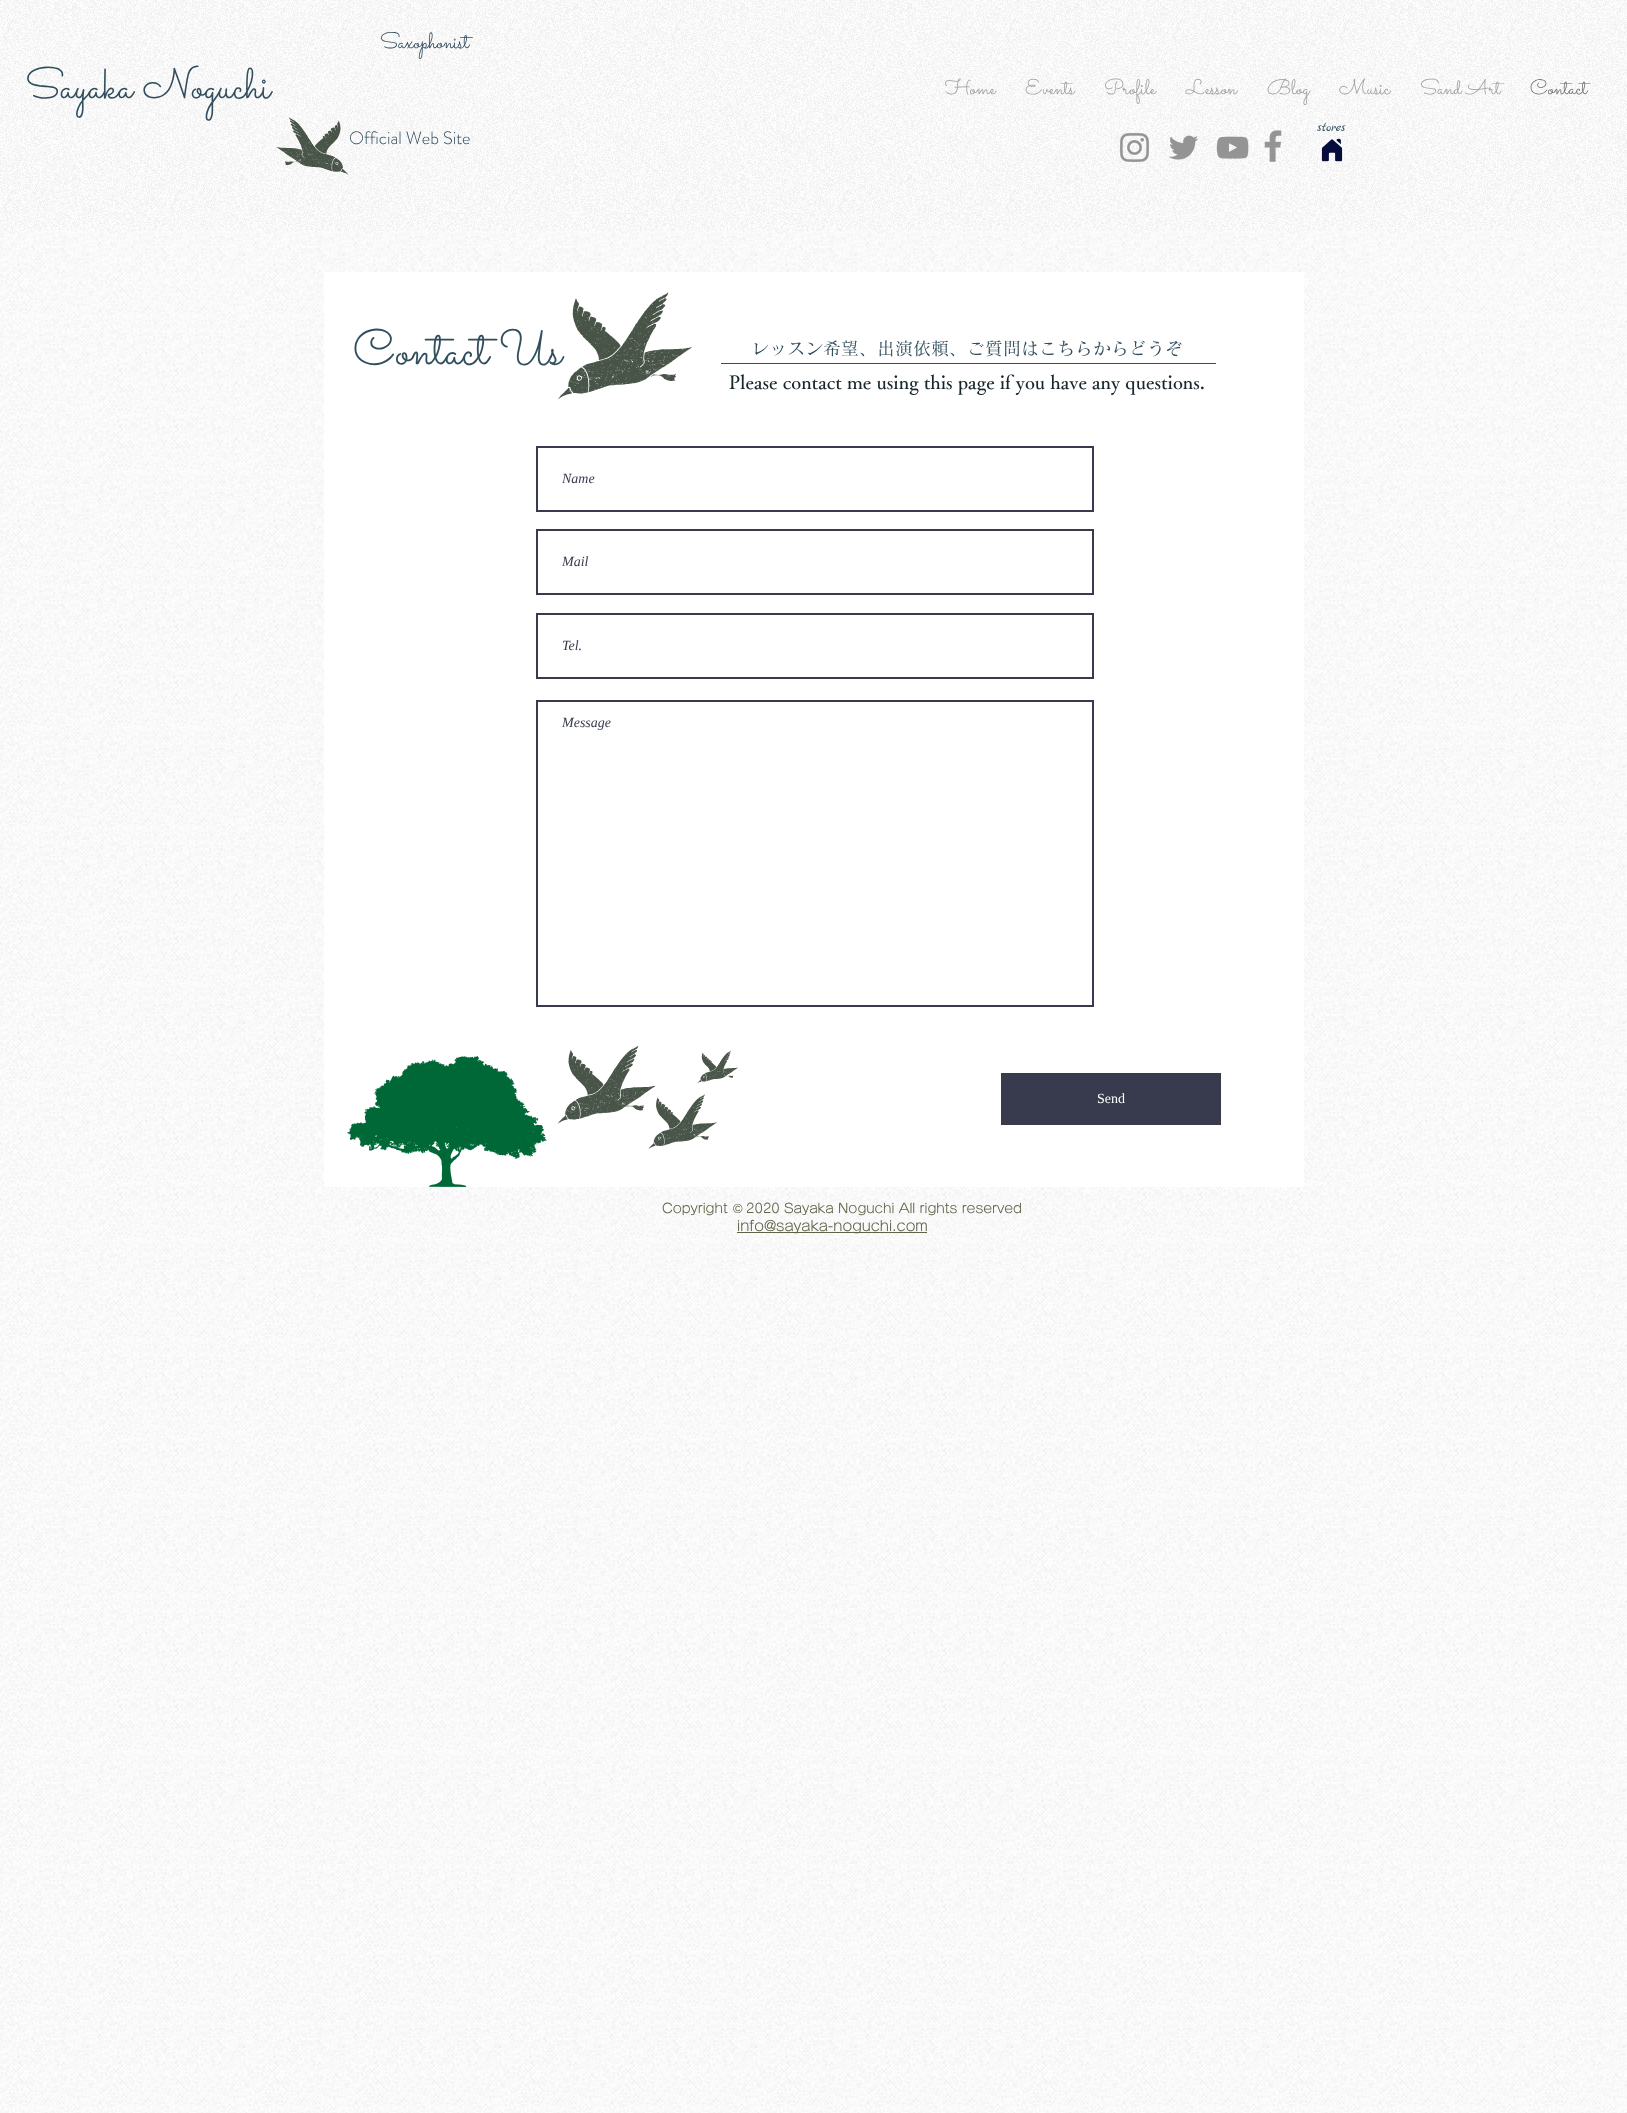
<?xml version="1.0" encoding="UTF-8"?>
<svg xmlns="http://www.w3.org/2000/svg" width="1627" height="2113">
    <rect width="100%" height="100%" fill="#FFFFFF"/>
    <image x="0" y="0" width="1627" height="231" href="img_01.png"/>
    <text x="25" y="98" font-family="Sacramento" font-size="43" fill="#314E5D">Sayaka Noguchi</text>
    <text x="380" y="48" font-family="Sacramento" font-size="22" fill="#314E5D">Saxophonist</text>
    <image x="275" y="117" width="74" height="59" href="img_02.png"/>
    <text x="1317" y="131" font-family="Marck Script" font-size="14" fill="#314E5D">stores</text>
    <text x="349" y="144" font-family="'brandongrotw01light'" font-size="18" font-weight="300" fill="#314E5D">Official Web Site</text>
    <image x="1120" y="133" width="29" height="29" href="img_03.png"/>
    <image x="1169" y="135" width="30" height="25" href="img_04.png"/>
    <image x="1216" y="136" width="33" height="23" href="img_05.png"/>
    <image x="1264" y="130" width="18" height="32" href="img_06.png"/>
    <image x="1321" y="138" width="22" height="24" href="img_07.png"/>
    <text x="945" y="94" font-family="Sacramento" font-size="21" fill="#9E9E9E">Home</text>
    <text x="1025" y="94" font-family="Sacramento" font-size="21" fill="#9E9E9E">Events</text>
    <text x="1104" y="94" font-family="Sacramento" font-size="21" fill="#9E9E9E">Profile</text>
    <text x="1186" y="94" font-family="Sacramento" font-size="21" fill="#9E9E9E">Lesson</text>
    <text x="1267" y="94" font-family="Sacramento" font-size="21" fill="#9E9E9E">Blog</text>
    <text x="1339" y="94" font-family="Sacramento" font-size="21" fill="#9E9E9E">Music</text>
    <text x="1420" y="94" font-family="Sacramento" font-size="21" fill="#9E9E9E">Sand Art</text>
    <text x="1530" y="94" font-family="Sacramento" font-size="21" fill="#6E6E6E">Contact</text>
    <image x="0" y="231" width="1627" height="1882" href="img_13.png"/>
    <rect x="324" y="272" width="980" height="915" fill="#FFFFFF"/>
    <image x="558" y="292" width="134" height="108" href="img_08.png"/>
    <text x="353" y="364" font-family="Sacramento" font-size="50" fill="#314E5D">Contact Us</text>
    <text x="751" y="355" font-family="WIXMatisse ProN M" font-size="18" font-weight="500" fill="#314E5D">レッスン希望、出演依頼、ご質問はこちらからどうぞ</text>
    <rect x="721" y="363" width="495" height="1" fill="#314E5D"/>
    <text x="729" y="389" font-family="'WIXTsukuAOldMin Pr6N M'" font-size="19" font-weight="500" fill="#18272E">Please contact me using this page if you have any questions.</text>
    <rect x="537" y="447" width="556" height="64" fill="none" stroke="#373B4D" stroke-width="2"/>
    <text x="562" y="483" font-family="Liberation Serif" font-size="14" font-style="italic" fill="#373B4D">Name</text>
    <rect x="537" y="530" width="556" height="64" fill="none" stroke="#373B4D" stroke-width="2"/>
    <text x="562" y="566" font-family="Liberation Serif" font-size="14" font-style="italic" fill="#373B4D">Mail</text>
    <rect x="537" y="614" width="556" height="64" fill="none" stroke="#373B4D" stroke-width="2"/>
    <text x="562" y="650" font-family="Liberation Serif" font-size="14" font-style="italic" fill="#373B4D">Tel.</text>
    <rect x="537" y="701" width="556" height="305" fill="none" stroke="#373B4D" stroke-width="2"/>
    <text x="562" y="727" font-family="Liberation Serif" font-size="14" font-style="italic" fill="#373B4D">Message</text>
    <image x="347" y="1056" width="200" height="131" href="img_09.png"/>
    <image x="558" y="1045" width="98" height="79" href="img_10.png"/>
    <image x="648" y="1094" width="69" height="55" href="img_11.png"/>
    <image x="697" y="1050" width="41" height="34" href="img_12.png"/>
    <rect x="1001" y="1073" width="220" height="52" fill="#373B4D"/>
    <text x="1097" y="1103" font-family="Liberation Serif" font-size="14" fill="#FFFFFF">Send</text>
    <text x="662" y="1213" font-family="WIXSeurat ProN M" font-size="13" font-weight="500" fill="#5F6448">Copyright</text>
    <text x="733" y="1213" font-family="Liberation Sans" font-size="13" fill="#5F6448">©</text>
    <text x="746" y="1213" font-family="WIXSeurat ProN M" font-size="13" font-weight="500" fill="#5F6448">2020 Sayaka Noguchi All rights reserved</text>
    <rect x="737" y="1232" width="190" height="1" fill="#5F6448"/>
    <text x="737" y="1231" font-family="WIXSeurat ProN M" font-size="14" font-weight="500" fill="#5F6448">info@sayaka-noguchi.com</text>
</svg>
